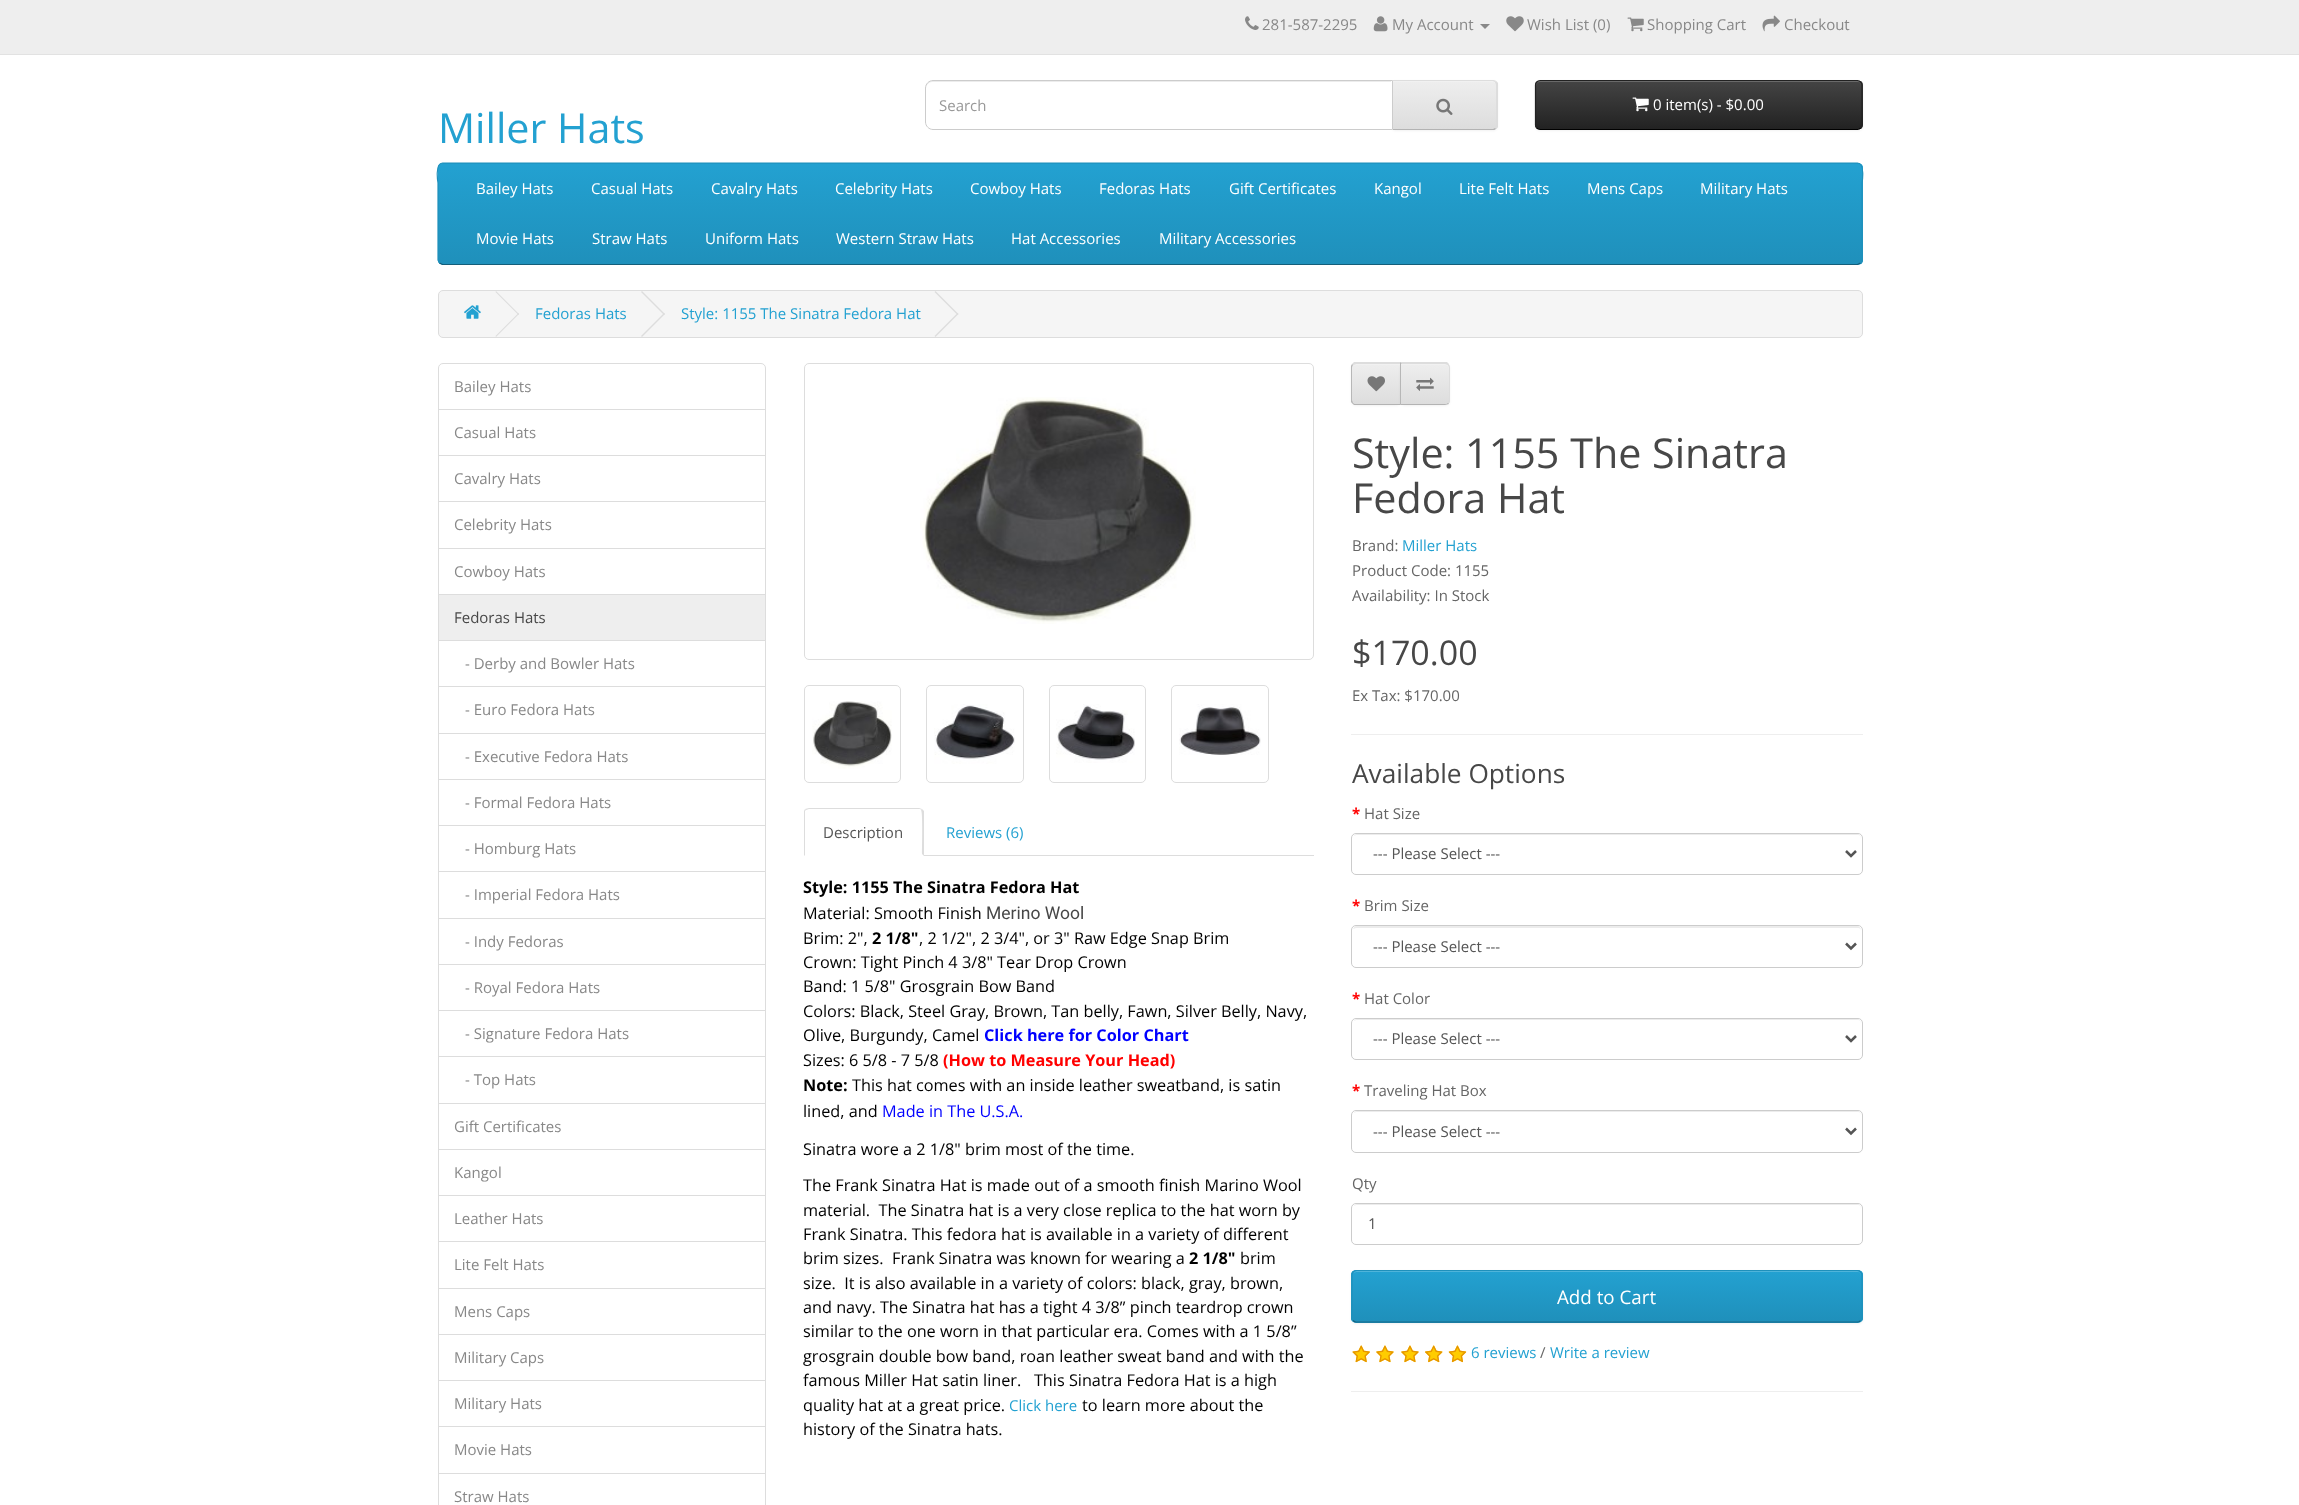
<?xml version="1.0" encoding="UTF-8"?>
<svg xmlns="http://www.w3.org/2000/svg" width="2299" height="1505">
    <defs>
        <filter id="blur1" x="-50%" y="-200%" width="200%" height="500%"><feGaussianBlur stdDeviation="1"/></filter>
        <clipPath id="clip1"><path d="M 1391 80 H 1493 C 1496 80 1498 82 1498 85 V 125 C 1498 128 1496 130 1493 130 H 1391 Z"/></clipPath>
        <linearGradient id="g1" gradientUnits="userSpaceOnUse" x1="1444" y1="81" x2="1444" y2="129"><stop offset="0" stop-color="#EEEEEE"/><stop offset="1" stop-color="#DDDDDD"/></linearGradient>
        <clipPath id="clip2"><rect x="1535" y="80" width="328" height="50" rx="5"/></clipPath>
        <linearGradient id="g2" gradientUnits="userSpaceOnUse" x1="1699" y1="81" x2="1699" y2="129"><stop offset="0" stop-color="#444444"/><stop offset="1" stop-color="#222222"/></linearGradient>
        <clipPath id="clip3"><rect x="438" y="163" width="1425" height="102" rx="5"/></clipPath>
        <linearGradient id="g3" gradientUnits="userSpaceOnUse" x1="1150" y1="164" x2="1150" y2="264"><stop offset="0" stop-color="#23A1D1"/><stop offset="1" stop-color="#1F90BB"/></linearGradient>
        <clipPath id="clip4"><path d="M 1356 363 H 1401 V 405 H 1356 C 1353 405 1351 403 1351 400 V 368 C 1351 365 1353 363 1356 363 Z"/></clipPath>
        <linearGradient id="g4" gradientUnits="userSpaceOnUse" x1="1376" y1="364" x2="1376" y2="404"><stop offset="0" stop-color="#EEEEEE"/><stop offset="1" stop-color="#DDDDDD"/></linearGradient>
        <clipPath id="clip5"><path d="M 1400 363 H 1445 C 1448 363 1450 365 1450 368 V 400 C 1450 403 1448 405 1445 405 H 1400 Z"/></clipPath>
        <linearGradient id="g5" gradientUnits="userSpaceOnUse" x1="1425" y1="364" x2="1425" y2="404"><stop offset="0" stop-color="#EEEEEE"/><stop offset="1" stop-color="#DDDDDD"/></linearGradient>
        <clipPath id="clip6"><rect x="1351" y="1270" width="512" height="53" rx="5"/></clipPath>
        <linearGradient id="g6" gradientUnits="userSpaceOnUse" x1="1607" y1="1271" x2="1607" y2="1321"><stop offset="0" stop-color="#23A1D1"/><stop offset="1" stop-color="#1F90BB"/></linearGradient>
    </defs>
    <rect width="100%" height="100%" fill="#FFFFFF"/>
    <rect x="0" y="0" width="2299" height="54" fill="#EEEEEE"/>
    <rect x="0" y="54" width="2299" height="1" fill="#E2E2E2"/>
    <image x="1245" y="16" width="14" height="14" href="img_01.png"/>
    <text x="1262" y="30" font-family="Open Sans" font-size="15" fill="#888888">281-587-2295</text>
    <image x="1373" y="16" width="15" height="16" href="img_02.png"/>
    <text x="1392" y="30" font-family="Open Sans" font-size="15" fill="#888888">My Account</text>
    <path d="M 1480 24 H 1490 L 1485 29 Z" fill="#888888"/>
    <image x="1506" y="16" width="18" height="16" href="img_03.png"/>
    <text x="1527" y="30" font-family="Open Sans" font-size="15" fill="#888888">Wish List (0)</text>
    <image x="1627" y="17" width="17" height="15" href="img_04.png"/>
    <text x="1647" y="30" font-family="Open Sans" font-size="15" fill="#888888">Shopping Cart</text>
    <image x="1762" y="15" width="18" height="17" href="img_05.png"/>
    <text x="1784" y="30" font-family="Open Sans" font-size="15" fill="#888888">Checkout</text>
    <rect x="1391" y="81" width="107" height="50" rx="5" fill="#000000" fill-opacity="0.05" filter="url(#blur1)"/>
    <g clip-path="url(#clip1)">
        <rect x="1393" y="81" width="105" height="48" fill="url(#g1)"/>
    </g>
    <path d="M 1393 81 V 82 H 1492 C 1495 82 1496 84 1496 86 C 1496 83 1495 81 1492 81 Z" fill="#F1F1F1"/>
    <path d="M 1391 80 L 1392 81 H 1493 L 1495 82 L 1496 81 C 1495 80 1494 80 1492 80 Z" fill="#DDDDDD"/>
    <path d="M 1498 127 L 1496 129 L 1495 128 L 1496 125 V 85 L 1495 82 L 1496 81 L 1498 83 Z" fill="#DDDDDD"/>
    <path d="M 1391 130 H 1492 C 1494 130 1495 130 1496 129 L 1495 128 L 1493 129 H 1392 Z" fill="#B3B3B3"/>
    <path d="M 933 80 H 1393 V 130 H 933 C 928.5 130 925 126.5 925 122 V 88 C 925 83.5 928.5 80 933 80 Z" fill="#FFFFFF"/>
    <path d="M 932 82 H 1391 V 81 H 932 C 927 81 926 85 926 89 C 926 85 929 82 932 82 Z" fill="#ECECEC"/>
    <path d="M 933 80.5 H 1392.5 V 129.5 H 933 C 929 129.5 925.5 126 925.5 122 V 88 C 925.5 84 929 80.5 933 80.5 Z" fill="none" stroke="#CCCCCC"/>
    <text x="939" y="111" font-family="Open Sans" font-size="15" fill="#999999">Search</text>
    <image x="1436" y="98" width="17" height="17" href="img_06.png"/>
    <rect x="1535" y="81" width="328" height="50" rx="5" fill="#000000" fill-opacity="0.05" filter="url(#blur1)"/>
    <g clip-path="url(#clip2)">
        <rect x="1535" y="81" width="328" height="48" fill="url(#g2)"/>
    </g>
    <path d="M 1540 82 H 1858 C 1860 82 1861 84 1861 86 V 85 C 1861 83 1859 81 1857 81 H 1540 C 1538 81 1536 83 1536 85 V 86 C 1536 84 1538 82 1540 82 Z" fill="#696969"/>
    <path d="M 1860.5 128 C 1860 129 1858.5 129.5 1857.5 129.5 H 1540 C 1539 129.5 1537.5 129 1537 128" fill="none" stroke="#000000" stroke-width="1.2"/>
    <path d="M 1537 128 C 1536 127.5 1535.5 126 1535.5 125 V 85 C 1535.5 84 1536 82.5 1537 82 C 1537.5 81 1539 80.5 1540 80.5 H 1857.5 C 1858.5 80.5 1860 81 1860.5 82 C 1861.5 82.5 1862 84 1862 85 V 125 C 1862 126 1861.5 127.5 1860.5 128" fill="none" stroke="#222222" stroke-width="1.2"/>
    <image x="1632" y="97" width="17" height="15" href="img_07.png"/>
    <text x="1653" y="110" font-family="Open Sans" font-size="15" fill="#FFFFFF">0 item(s) - $0.00</text>
    <text x="438" y="143" font-family="Open Sans" font-size="41.25" fill="#23A1D1">Miller Hats</text>
    <rect x="438" y="163" width="1425" height="102" rx="5" fill="#229AC8"/>
    <g clip-path="url(#clip3)">
        <rect x="438" y="164" width="1425" height="100" fill="url(#g3)"/>
    </g>
    <path d="M 1860.5 263 L 1857.5 264.5 H 442.5 L 439.5 263" fill="none" stroke="#145E7A" stroke-width="1.2"/>
    <path d="M 439.5 263 L 438 260 V 183 C 438 183 434.5 163 442.5 163 H 1857.5 C 1865.5 163 1862 183 1862 183 V 260 L 1860.5 263" fill="none" stroke="#1F90BB" stroke-width="1.2"/>
    <text x="476" y="194" font-family="Open Sans" font-size="15" fill="#FFFFFF">Bailey Hats</text>
    <text x="591" y="194" font-family="Open Sans" font-size="15" fill="#FFFFFF">Casual Hats</text>
    <text x="711" y="194" font-family="Open Sans" font-size="15" fill="#FFFFFF">Cavalry Hats</text>
    <text x="835" y="194" font-family="Open Sans" font-size="15" fill="#FFFFFF">Celebrity Hats</text>
    <text x="970" y="194" font-family="Open Sans" font-size="15" fill="#FFFFFF">Cowboy Hats</text>
    <text x="1099" y="194" font-family="Open Sans" font-size="15" fill="#FFFFFF">Fedoras Hats</text>
    <text x="1229" y="194" font-family="Open Sans" font-size="15" fill="#FFFFFF">Gift Certificates</text>
    <text x="1374" y="194" font-family="Open Sans" font-size="15" fill="#FFFFFF">Kangol</text>
    <text x="1459" y="194" font-family="Open Sans" font-size="15" fill="#FFFFFF">Lite Felt Hats</text>
    <text x="1587" y="194" font-family="Open Sans" font-size="15" fill="#FFFFFF">Mens Caps</text>
    <text x="1700" y="194" font-family="Open Sans" font-size="15" fill="#FFFFFF">Military Hats</text>
    <text x="476" y="244" font-family="Open Sans" font-size="15" fill="#FFFFFF">Movie Hats</text>
    <text x="592" y="244" font-family="Open Sans" font-size="15" fill="#FFFFFF">Straw Hats</text>
    <text x="705" y="244" font-family="Open Sans" font-size="15" fill="#FFFFFF">Uniform Hats</text>
    <text x="836" y="244" font-family="Open Sans" font-size="15" fill="#FFFFFF">Western Straw Hats</text>
    <text x="1011" y="244" font-family="Open Sans" font-size="15" fill="#FFFFFF">Hat Accessories</text>
    <text x="1159" y="244" font-family="Open Sans" font-size="15" fill="#FFFFFF">Military Accessories</text>
    <rect x="438.5" y="290.5" width="1424" height="47" rx="4.5" fill="#F5F5F5" stroke="#DDDDDD"/>
    <image x="464" y="305" width="17" height="14" href="img_08.png"/>
    <path d="M 495.5 292 L 496 291 L 519 314 L 518.5 315 Z" fill="#DDDDDD"/>
    <path d="M 495.5 336 L 518.5 313 L 519 314 L 496 337 Z" fill="#DDDDDD"/>
    <text x="535" y="319" font-family="Open Sans" font-size="15" fill="#23A1D1">Fedoras Hats</text>
    <path d="M 641 292 L 642 291 L 665 314 L 664 315 Z" fill="#DDDDDD"/>
    <path d="M 641 336 L 664 313 L 665 314 L 642 337 Z" fill="#DDDDDD"/>
    <text x="681" y="319" font-family="Open Sans" font-size="15" fill="#23A1D1">Style: 1155 The Sinatra Fedora Hat</text>
    <path d="M 934.5 292 L 935.5 291 L 958.5 314 L 957.5 315 Z" fill="#DDDDDD"/>
    <path d="M 934.5 336 L 957.5 313 L 958.5 314 L 935.5 337 Z" fill="#DDDDDD"/>
    <path d="M 443 363.5 H 761 C 763.5 363.5 765.5 365.5 765.5 368 V 409.5 H 438.5 V 368 C 438.5 365.5 440.5 363.5 443 363.5 Z" fill="none" stroke="#DDDDDD"/>
    <text x="454" y="392" font-family="Open Sans" font-size="15" fill="#888888">Bailey Hats</text>
    <rect x="438.5" y="409.5" width="327" height="46" fill="none" stroke="#DDDDDD"/>
    <text x="454" y="438" font-family="Open Sans" font-size="15" fill="#888888">Casual Hats</text>
    <rect x="438.5" y="455.5" width="327" height="47" fill="none" stroke="#DDDDDD"/>
    <text x="454" y="484" font-family="Open Sans" font-size="15" fill="#888888">Cavalry Hats</text>
    <rect x="439" y="502" width="326" height="1" fill="#FFFFFF"/>
    <rect x="438.5" y="501.5" width="327" height="47" fill="none" stroke="#DDDDDD"/>
    <text x="454" y="530" font-family="Open Sans" font-size="15" fill="#888888">Celebrity Hats</text>
    <rect x="438.5" y="548.5" width="327" height="46" fill="none" stroke="#DDDDDD"/>
    <text x="454" y="577" font-family="Open Sans" font-size="15" fill="#888888">Cowboy Hats</text>
    <rect x="438.5" y="640.5" width="327" height="47" fill="none" stroke="#DDDDDD"/>
    <rect x="438.5" y="594.5" width="327" height="46" fill="#EEEEEE" stroke="#DDDDDD"/>
    <text x="454" y="623" font-family="Open Sans" font-size="15" fill="#474747">Fedoras Hats</text>
    <text x="465" y="669" font-family="Open Sans" font-size="15" fill="#888888">- Derby and Bowler Hats</text>
    <rect x="439" y="687" width="326" height="1" fill="#FFFFFF"/>
    <rect x="438.5" y="686.5" width="327" height="47" fill="none" stroke="#DDDDDD"/>
    <text x="465" y="715" font-family="Open Sans" font-size="15" fill="#888888">- Euro Fedora Hats</text>
    <rect x="438.5" y="733.5" width="327" height="46" fill="none" stroke="#DDDDDD"/>
    <text x="465" y="762" font-family="Open Sans" font-size="15" fill="#888888">- Executive Fedora Hats</text>
    <rect x="438.5" y="779.5" width="327" height="46" fill="none" stroke="#DDDDDD"/>
    <text x="465" y="808" font-family="Open Sans" font-size="15" fill="#888888">- Formal Fedora Hats</text>
    <rect x="438.5" y="825.5" width="327" height="47" fill="none" stroke="#DDDDDD"/>
    <text x="465" y="854" font-family="Open Sans" font-size="15" fill="#888888">- Homburg Hats</text>
    <rect x="439" y="872" width="326" height="1" fill="#FFFFFF"/>
    <rect x="438.5" y="871.5" width="327" height="47" fill="none" stroke="#DDDDDD"/>
    <text x="465" y="900" font-family="Open Sans" font-size="15" fill="#888888">- Imperial Fedora Hats</text>
    <rect x="438.5" y="918.5" width="327" height="46" fill="none" stroke="#DDDDDD"/>
    <text x="465" y="947" font-family="Open Sans" font-size="15" fill="#888888">- Indy Fedoras</text>
    <rect x="438.5" y="964.5" width="327" height="46" fill="none" stroke="#DDDDDD"/>
    <text x="465" y="993" font-family="Open Sans" font-size="15" fill="#888888">- Royal Fedora Hats</text>
    <rect x="438.5" y="1010.5" width="327" height="47" fill="none" stroke="#DDDDDD"/>
    <text x="465" y="1039" font-family="Open Sans" font-size="15" fill="#888888">- Signature Fedora Hats</text>
    <rect x="439" y="1057" width="326" height="1" fill="#FFFFFF"/>
    <rect x="438.5" y="1056.5" width="327" height="47" fill="none" stroke="#DDDDDD"/>
    <text x="465" y="1085" font-family="Open Sans" font-size="15" fill="#888888">- Top Hats</text>
    <rect x="438.5" y="1103.5" width="327" height="46" fill="none" stroke="#DDDDDD"/>
    <text x="454" y="1132" font-family="Open Sans" font-size="15" fill="#888888">Gift Certificates</text>
    <rect x="438.5" y="1149.5" width="327" height="46" fill="none" stroke="#DDDDDD"/>
    <text x="454" y="1178" font-family="Open Sans" font-size="15" fill="#888888">Kangol</text>
    <rect x="438.5" y="1195.5" width="327" height="47" fill="none" stroke="#DDDDDD"/>
    <text x="454" y="1224" font-family="Open Sans" font-size="15" fill="#888888">Leather Hats</text>
    <rect x="439" y="1242" width="326" height="1" fill="#FFFFFF"/>
    <rect x="438.5" y="1241.5" width="327" height="47" fill="none" stroke="#DDDDDD"/>
    <text x="454" y="1270" font-family="Open Sans" font-size="15" fill="#888888">Lite Felt Hats</text>
    <rect x="438.5" y="1288.5" width="327" height="46" fill="none" stroke="#DDDDDD"/>
    <text x="454" y="1317" font-family="Open Sans" font-size="15" fill="#888888">Mens Caps</text>
    <rect x="438.5" y="1334.5" width="327" height="46" fill="none" stroke="#DDDDDD"/>
    <text x="454" y="1363" font-family="Open Sans" font-size="15" fill="#888888">Military Caps</text>
    <rect x="438.5" y="1380.5" width="327" height="47" fill="none" stroke="#DDDDDD"/>
    <text x="454" y="1409" font-family="Open Sans" font-size="15" fill="#888888">Military Hats</text>
    <rect x="439" y="1427" width="326" height="1" fill="#FFFFFF"/>
    <rect x="438.5" y="1426.5" width="327" height="47" fill="none" stroke="#DDDDDD"/>
    <text x="454" y="1455" font-family="Open Sans" font-size="15" fill="#888888">Movie Hats</text>
    <rect x="438.5" y="1473.5" width="327" height="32" fill="none" stroke="#DDDDDD"/>
    <text x="454" y="1502" font-family="Open Sans" font-size="15" fill="#888888">Straw Hats</text>
    <rect x="804.5" y="363.5" width="509" height="296" rx="4.5" fill="none" stroke="#DDDDDD"/>
    <image x="920" y="397" width="276" height="227" href="img_09.png"/>
    <rect x="804.5" y="685.5" width="96" height="97" rx="4.5" fill="none" stroke="#DDDDDD"/>
    <image x="812" y="701" width="80" height="68" href="img_10.png"/>
    <rect x="926.5" y="685.5" width="97" height="97" rx="4.5" fill="none" stroke="#DDDDDD"/>
    <image x="934" y="704" width="81" height="60" href="img_11.png"/>
    <rect x="1049.5" y="685.5" width="96" height="97" rx="4.5" fill="none" stroke="#DDDDDD"/>
    <image x="1056" y="704" width="79" height="59" href="img_12.png"/>
    <rect x="1171.5" y="685.5" width="97" height="97" rx="4.5" fill="none" stroke="#DDDDDD"/>
    <image x="1179" y="704" width="82" height="51" href="img_13.png"/>
    <rect x="924" y="855" width="390" height="1" fill="#DDDDDD"/>
    <path d="M 809 808 L 805 809 L 806 810 L 809 809 H 919 C 920 809 921 809 921 810 L 922 809 L 919 808 Z" fill="#DDDDDD"/>
    <path d="M 922 809 L 924 811 V 856 L 922 854 C 922 849 923 812 921 810 Z" fill="#DDDDDD"/>
    <path d="M 805 809 L 804 811 V 856 L 805 855 V 811 L 806 810 Z" fill="#DDDDDD"/>
    <text x="823" y="838" font-family="Open Sans" font-size="15" fill="#555555">Description</text>
    <text x="946" y="838" font-family="Open Sans" font-size="15" fill="#23A1D1">Reviews (6)</text>
    <text x="803" y="893" font-family="Open Sans" font-size="16.25" font-weight="700" fill="#000000">Style: 1155 The Sinatra Fedora Hat</text>
    <text x="803" y="919" font-family="Open Sans" font-size="16.25" fill="#000000">Material: Smooth Finish</text>
    <text x="986" y="919" font-family="Roboto" font-size="17.5" fill="#474747">Merino Wool</text>
    <text x="803" y="944" font-family="Open Sans" font-size="16.25" fill="#000000">Brim: 2",</text>
    <text x="872" y="944" font-family="Open Sans" font-size="16.25" font-weight="700" fill="#000000">2 1/8"</text>
    <text x="919" y="944" font-family="Open Sans" font-size="16.25" fill="#000000">, 2 1/2", 2 3/4", or 3" Raw Edge Snap Brim</text>
    <text font-family="Open Sans" font-size="16.25" fill="#000000">
        <tspan x="803" y="968">Crown: Tight Pinch 4 3/8" Tear Drop Crown</tspan>
        <tspan x="803" y="992">Band: 1 5/8" Grosgrain Bow Band</tspan>
        <tspan x="803" y="1017">Colors: Black, Steel Gray, Brown, Tan belly, Fawn, Silver Belly, Navy,</tspan>
        <tspan x="803" y="1041">Olive, Burgundy, Camel</tspan>
    </text>
    <text x="984" y="1041" font-family="Open Sans" font-size="16.25" font-weight="700" fill="#0000FF">Click here for Color Chart</text>
    <text x="803" y="1066" font-family="Open Sans" font-size="16.25" fill="#000000">Sizes: 6 5/8 - 7 5/8</text>
    <text x="943" y="1066" font-family="Open Sans" font-size="16.25" font-weight="700" fill="#FF0000">(How to Measure Your Head)</text>
    <text x="803" y="1091" font-family="Open Sans" font-size="16.25" font-weight="700" fill="#000000">Note:</text>
    <text x="852" y="1091" font-family="Open Sans" font-size="16.25" fill="#000000">This hat comes with an inside leather sweatband, is satin</text>
    <text x="803" y="1117" font-family="Open Sans" font-size="16.25" fill="#000000">lined, and</text>
    <text x="882" y="1117" font-family="Open Sans" font-size="16.25" fill="#0000FF">Made in The U.S.A.</text>
    <text x="803" y="1155" font-family="Open Sans" font-size="16.25" fill="#000000">Sinatra wore a 2 1/8" brim most of the time.</text>
    <text font-family="Open Sans" font-size="16.25" fill="#000000" xml:space="preserve"><tspan x="803" y="1191">The Frank Sinatra Hat is made out of a smooth finish Marino Wool</tspan><tspan x="803" y="1216">material.  The Sinatra hat is a very close replica to the hat worn by</tspan><tspan x="803" y="1240">Frank Sinatra. This fedora hat is available in a variety of different</tspan><tspan x="803" y="1264">brim sizes.  Frank Sinatra was known for wearing a</tspan></text>
    <text x="1189" y="1264" font-family="Open Sans" font-size="16.25" font-weight="700" fill="#000000">2 1/8"</text>
    <text x="1240" y="1264" font-family="Open Sans" font-size="16.25" fill="#000000">brim</text>
    <text font-family="Open Sans" font-size="16.25" fill="#000000" xml:space="preserve"><tspan x="803" y="1289">size.  It is also available in a variety of colors: black, gray, brown,</tspan><tspan x="803" y="1313">and navy. The Sinatra hat has a tight 4 3/8” pinch teardrop crown</tspan><tspan x="803" y="1337">similar to the one worn in that particular era. Comes with a 1 5/8”</tspan><tspan x="803" y="1362">grosgrain double bow band, roan leather sweat band and with the</tspan><tspan x="803" y="1386">famous Miller Hat satin liner.   This Sinatra Fedora Hat is a high</tspan><tspan x="803" y="1411">quality hat at a great price.</tspan></text>
    <text x="1009" y="1411" font-family="Open Sans" font-size="15" fill="#23A1D1">Click here</text>
    <text x="1082" y="1411" font-family="Open Sans" font-size="16.25" fill="#000000">to learn more about the</text>
    <text x="803" y="1435" font-family="Open Sans" font-size="16.25" fill="#000000">history of the Sinatra hats.</text>
    <rect x="1351" y="364" width="50" height="42" rx="5" fill="#000000" fill-opacity="0.05" filter="url(#blur1)"/>
    <g clip-path="url(#clip4)">
        <rect x="1351" y="364" width="49" height="40" fill="url(#g4)"/>
    </g>
    <path d="M 1356 365 H 1400 V 364 H 1357 C 1356 364 1354 365 1354 366 Z" fill="#F1F1F1"/>
    <path d="M 1356 364 L 1353 365 L 1352 364 L 1354 362 H 1401 L 1400 364 Z" fill="#DDDDDD"/>
    <path d="M 1356 405 H 1401 L 1400 404 H 1356 C 1355 404 1354 404 1353 403 V 404 C 1353 405 1355 405 1356 405 Z" fill="#B3B3B3"/>
    <path d="M 1351 366 L 1352 364 L 1353 365 C 1353 365 1352 366 1352 368 V 400 C 1352 401 1353 402 1353 403 V 404 L 1351 402 Z" fill="#B7B7B7"/>
    <image x="1367" y="376" width="18" height="16" href="img_14.png"/>
    <rect x="1400" y="364" width="50" height="42" rx="5" fill="#000000" fill-opacity="0.05" filter="url(#blur1)"/>
    <g clip-path="url(#clip5)">
        <rect x="1401" y="364" width="49" height="40" fill="url(#g5)"/>
    </g>
    <path d="M 1401 365 H 1445 C 1447 365 1449 367 1449 369 V 368 C 1449 366 1447 364 1445 364 H 1401 Z" fill="#F1F1F1"/>
    <path d="M 1400 362 H 1447 L 1449 364 L 1448 365 L 1445 364 H 1402 Z" fill="#DDDDDD"/>
    <path d="M 1450 400 V 368 C 1450 366.5 1449.5 365 1448.5 364 L 1447.5 365 C 1448.5 365.5 1449 366.5 1449 368 V 400 C 1449 401 1448.5 402 1448 403 L 1448.5 403.5 C 1449.5 403 1450 401.5 1450 400 Z" fill="#DDDDDD"/>
    <path d="M 1445 405 C 1446 405 1448 404 1449 404 L 1448 403 C 1447 404 1446 404 1445 404 H 1401 L 1400 405 Z" fill="#B3B3B3"/>
    <path d="M 1401 364 H 1402 L 1400 362 V 405 L 1401 404 Z" fill="#B7B7B7"/>
    <image x="1416" y="377" width="18" height="14" href="img_15.png"/>
    <text font-family="Open Sans" font-size="41.25" fill="#474747">
        <tspan x="1352" y="468">Style: 1155 The Sinatra</tspan>
        <tspan x="1352" y="513">Fedora Hat</tspan>
    </text>
    <text x="1352" y="551" font-family="Open Sans" font-size="15" fill="#666666">Brand:</text>
    <text x="1402" y="551" font-family="Open Sans" font-size="15" fill="#23A1D1">Miller Hats</text>
    <text font-family="Open Sans" font-size="15" fill="#666666">
        <tspan x="1352" y="576">Product Code: 1155</tspan>
        <tspan x="1352" y="601">Availability: In Stock</tspan>
    </text>
    <text x="1352" y="665" font-family="Open Sans" font-size="34" fill="#474747">$170.00</text>
    <text x="1352" y="701" font-family="Open Sans" font-size="15" fill="#666666">Ex Tax: $170.00</text>
    <rect x="1351" y="734" width="512" height="1" fill="#EEEEEE"/>
    <text x="1352" y="783" font-family="Open Sans" font-size="26.25" fill="#474747">Available Options</text>
    <text x="1352" y="819" font-family="Open Sans" font-size="15" font-weight="700" fill="#FF0000">*</text>
    <text x="1364" y="819" font-family="Open Sans" font-size="15" fill="#666666">Hat Size</text>
    <path d="M 1356 835 H 1858 C 1860 835 1861 837 1861 839 V 838 C 1861 836 1859 834 1857 834 H 1357 C 1356 834 1354 835 1354 836 Z" fill="#ECECEC"/>
    <rect x="1351.5" y="833.5" width="511" height="41" rx="4.5" fill="none" stroke="#CCCCCC"/>
    <path d="M 1846 851 L 1851 856 L 1856 851" fill="none" stroke="#555555" stroke-width="2.5"/>
    <text x="1373" y="859" font-family="Open Sans" font-size="15" fill="#555555">--- Please Select ---</text>
    <text x="1352" y="911" font-family="Open Sans" font-size="15" font-weight="700" fill="#FF0000">*</text>
    <text x="1364" y="911" font-family="Open Sans" font-size="15" fill="#666666">Brim Size</text>
    <path d="M 1356 928 H 1858 C 1860 928 1861 929 1861 931 V 930 C 1861 928 1859 926 1857 926 H 1357 C 1355 926 1354 927 1353 929 Z" fill="#ECECEC"/>
    <rect x="1351.5" y="925.5" width="511" height="42" rx="4.5" fill="none" stroke="#CCCCCC"/>
    <path d="M 1846 943.5 L 1851 948.5 L 1856 943.5" fill="none" stroke="#555555" stroke-width="2.5"/>
    <text x="1373" y="952" font-family="Open Sans" font-size="15" fill="#555555">--- Please Select ---</text>
    <text x="1352" y="1004" font-family="Open Sans" font-size="15" font-weight="700" fill="#FF0000">*</text>
    <text x="1364" y="1004" font-family="Open Sans" font-size="15" fill="#666666">Hat Color</text>
    <path d="M 1356 1020 H 1858 C 1860 1020 1861 1022 1861 1024 V 1023 C 1861 1021 1859 1019 1857 1019 H 1357 C 1356 1019 1354 1020 1354 1021 Z" fill="#ECECEC"/>
    <rect x="1351.5" y="1018.5" width="511" height="41" rx="4.5" fill="none" stroke="#CCCCCC"/>
    <path d="M 1846 1036 L 1851 1041 L 1856 1036" fill="none" stroke="#555555" stroke-width="2.5"/>
    <text x="1373" y="1044" font-family="Open Sans" font-size="15" fill="#555555">--- Please Select ---</text>
    <text x="1352" y="1096" font-family="Open Sans" font-size="15" font-weight="700" fill="#FF0000">*</text>
    <text x="1364" y="1096" font-family="Open Sans" font-size="15" fill="#666666">Traveling Hat Box</text>
    <path d="M 1356 1112 H 1858 C 1860 1112 1861 1114 1861 1116 V 1115 C 1861 1113 1859 1111 1857 1111 H 1357 C 1356 1111 1354 1112 1354 1113 Z" fill="#ECECEC"/>
    <rect x="1351.5" y="1110.5" width="511" height="42" rx="4.5" fill="none" stroke="#CCCCCC"/>
    <path d="M 1846 1128.5 L 1851 1133.5 L 1856 1128.5" fill="none" stroke="#555555" stroke-width="2.5"/>
    <text x="1373" y="1137" font-family="Open Sans" font-size="15" fill="#555555">--- Please Select ---</text>
    <text x="1352" y="1189" font-family="Open Sans" font-size="15" fill="#666666">Qty</text>
    <path d="M 1356 1205 H 1858 C 1860 1205 1861 1207 1861 1209 V 1208 C 1861 1206 1859 1204 1857 1204 H 1357 C 1356 1204 1354 1205 1354 1206 Z" fill="#ECECEC"/>
    <rect x="1351.5" y="1203.5" width="511" height="41" rx="4.5" fill="none" stroke="#CCCCCC"/>
    <text x="1368" y="1229" font-family="Open Sans" font-size="15" fill="#555555">1</text>
    <rect x="1351" y="1271" width="512" height="53" rx="5" fill="#000000" fill-opacity="0.05" filter="url(#blur1)"/>
    <rect x="1351" y="1270" width="512" height="53" rx="5" fill="#229AC8"/>
    <g clip-path="url(#clip6)">
        <rect x="1351" y="1271" width="512" height="50" fill="url(#g6)"/>
    </g>
    <path d="M 1356 1272 H 1858 C 1860 1272 1861 1274 1861 1276 V 1275 C 1861 1273 1859 1271 1857 1271 H 1357 C 1356 1271 1354 1272 1354 1273 Z" fill="#4FB4DA"/>
    <path d="M 1860.5 1320.5 C 1860 1321.5 1858.5 1322 1857.5 1322 H 1356 C 1355 1322 1354 1321.5 1353 1320.5" fill="none" stroke="#145E7A" stroke-width="1.2"/>
    <path d="M 1353 1320.5 C 1352.5 1320 1352 1318.5 1352 1317.5 V 1275 C 1352 1274 1352.5 1272.5 1353 1272 C 1354 1271 1355 1270.5 1356 1270.5 H 1857.5 C 1858.5 1270.5 1860 1271 1860.5 1272 C 1861.5 1272.5 1862 1274 1862 1275 V 1317.5 C 1862 1318.5 1861.5 1320 1860.5 1320.5" fill="none" stroke="#1F90BB" stroke-width="1.2"/>
    <text x="1557" y="1304" font-family="Open Sans" font-size="18.75" fill="#FFFFFF">Add to Cart</text>
    <image x="1352" y="1345" width="18" height="18" href="img_16.png"/>
    <image x="1352" y="1345" width="18" height="18" href="img_17.png"/>
    <image x="1376" y="1345" width="18" height="18" href="img_18.png"/>
    <image x="1376" y="1345" width="18" height="18" href="img_19.png"/>
    <image x="1401" y="1345" width="18" height="18" href="img_18.png"/>
    <image x="1401" y="1345" width="18" height="18" href="img_19.png"/>
    <image x="1425" y="1345" width="18" height="18" href="img_20.png"/>
    <image x="1425" y="1345" width="18" height="18" href="img_21.png"/>
    <image x="1448" y="1345" width="19" height="18" href="img_22.png"/>
    <image x="1448" y="1345" width="19" height="18" href="img_23.png"/>
    <text x="1471" y="1358" font-family="Open Sans" font-size="15" fill="#23A1D1">6 reviews</text>
    <text x="1540" y="1358" font-family="Open Sans" font-size="15" fill="#666666">/</text>
    <text x="1550" y="1358" font-family="Open Sans" font-size="15" fill="#23A1D1">Write a review</text>
    <rect x="1351" y="1391" width="512" height="1" fill="#EEEEEE"/>
</svg>
